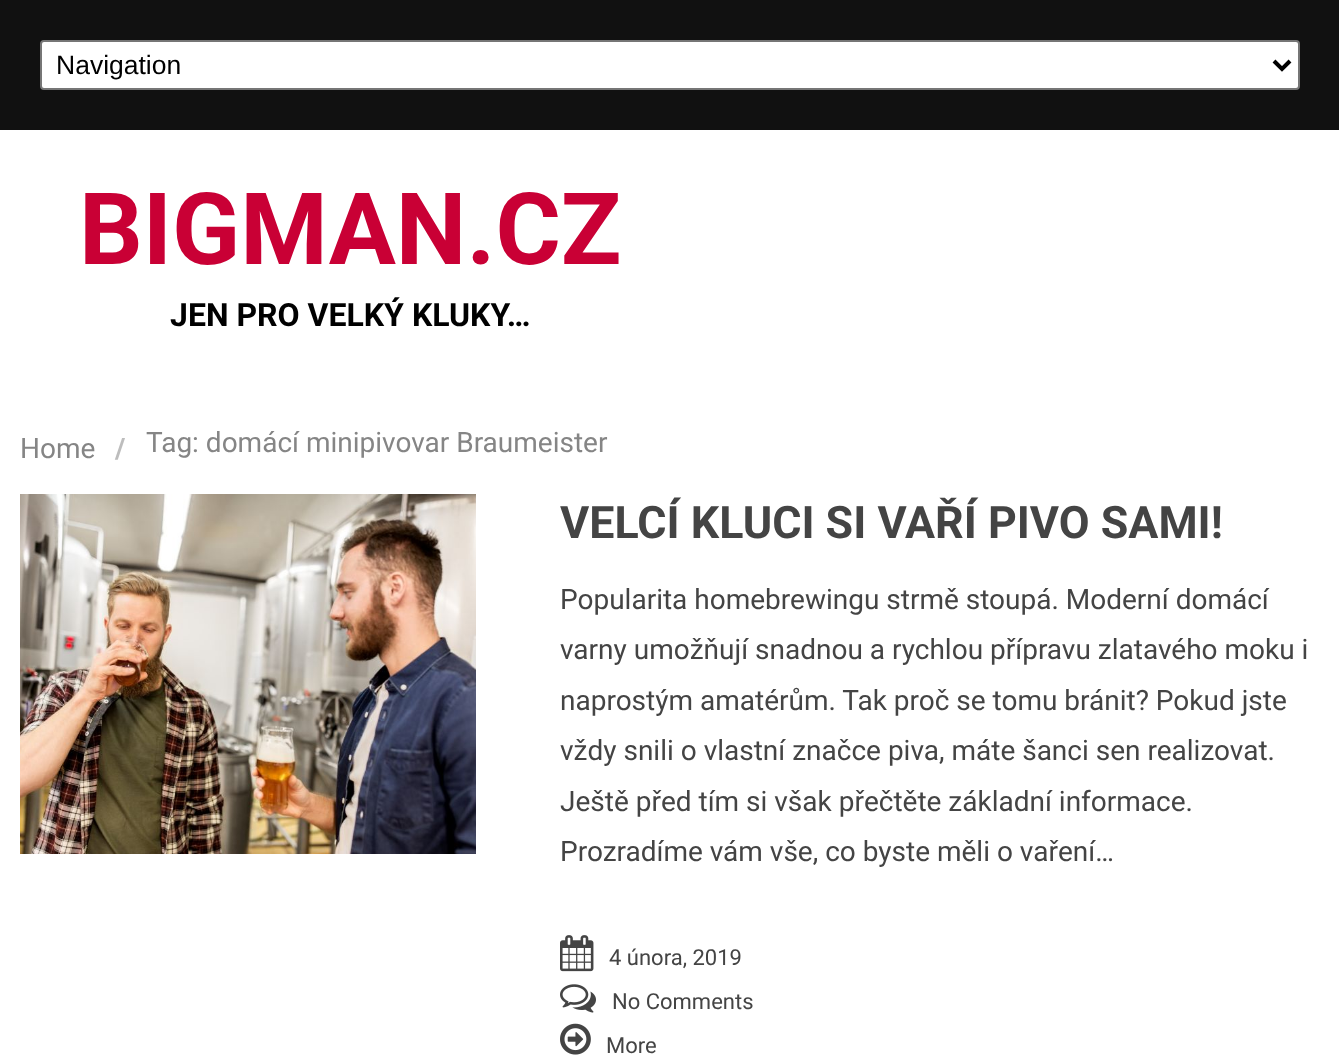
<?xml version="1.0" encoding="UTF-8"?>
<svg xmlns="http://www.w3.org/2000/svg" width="1339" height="1059">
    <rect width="100%" height="100%" fill="#FFFFFF"/>
    <rect x="0" y="0" width="1339" height="130" fill="#111111"/>
    <rect x="41" y="41" width="1258" height="48" rx="3" fill="#FFFFFF" stroke="#767676" stroke-width="2"/>
    <path d="M 1274 61 L 1282 69 L 1290 61" fill="none" stroke="#000000" stroke-width="4"/>
    <text x="56" y="74" font-family="Liberation Sans" font-size="26.5" fill="#000000">Navigation</text>
    <text x="79" y="264" font-family="Roboto" font-size="100" font-weight="700" fill="#C90035">BIGMAN.CZ</text>
    <text x="170" y="326" font-family="Roboto" font-size="32" font-weight="700" fill="#000000">JEN PRO VELKÝ KLUKY…</text>
    <text x="20" y="458" font-family="Roboto" font-size="28" fill="#858585">Home</text>
    <text x="115" y="458" font-family="Roboto" font-size="28" font-weight="700" fill="#BDBDBD">/</text>
    <text x="146" y="452" font-family="Roboto" font-size="28" fill="#858585">Tag: domácí minipivovar Braumeister</text>
    <image x="20" y="494" width="456" height="360" href="img_01.png"/>
    <text x="560" y="538" font-family="Roboto" font-size="44.75" font-weight="700" fill="#444444">VELCÍ KLUCI SI VAŘÍ PIVO SAMI!</text>
    <text font-family="Roboto" font-size="28" fill="#444444">
        <tspan x="560" y="609">Popularita homebrewingu strmě stoupá. Moderní domácí</tspan>
        <tspan x="560" y="659">varny umožňují snadnou a rychlou přípravu zlatavého moku i</tspan>
        <tspan x="560" y="710">naprostým amatérům. Tak proč se tomu bránit? Pokud jste</tspan>
        <tspan x="560" y="760">vždy snili o vlastní značce piva, máte šanci sen realizovat.</tspan>
        <tspan x="560" y="811">Ještě před tím si však přečtěte základní informace.</tspan>
        <tspan x="560" y="861">Prozradíme vám vše, co byste měli o vaření…</tspan>
    </text>
    <image x="560" y="935" width="34" height="37" href="img_02.png"/>
    <text x="609" y="965" font-family="Roboto" font-size="22" fill="#444444">4 února, 2019</text>
    <image x="560" y="984" width="36" height="29" href="img_03.png"/>
    <text x="612" y="1009" font-family="Roboto" font-size="22" fill="#444444">No Comments</text>
    <image x="560" y="1023" width="31" height="32" href="img_04.png"/>
    <text x="606" y="1053" font-family="Roboto" font-size="22" fill="#444444">More</text>
</svg>
